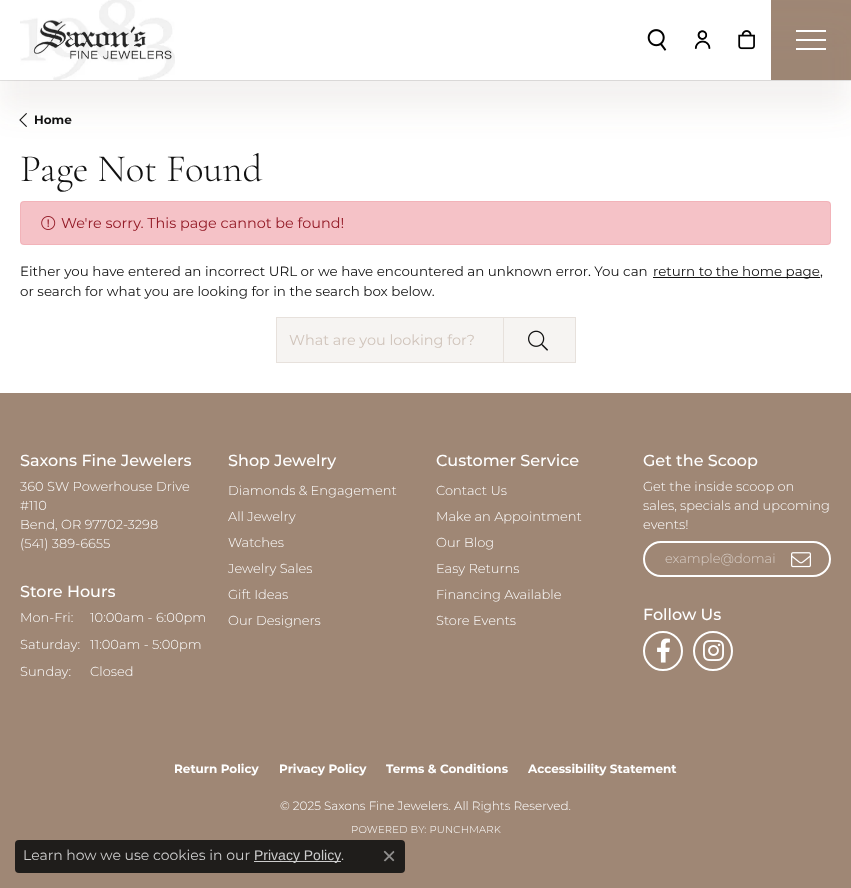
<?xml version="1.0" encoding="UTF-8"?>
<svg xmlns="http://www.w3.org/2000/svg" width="851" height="888">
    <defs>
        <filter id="blur1" x="-50%" y="-200%" width="200%" height="500%"><feGaussianBlur stdDeviation="15"/></filter>
    </defs>
    <rect width="100%" height="100%" fill="#9F8775"/>
    <rect x="0" y="80" width="851" height="313" fill="#FFFFFF"/>
    <image x="19" y="113" width="8" height="14" href="img_05.png"/>
    <rect x="0" y="30" width="851" height="80" fill="#8E7969" fill-opacity="0.1" filter="url(#blur1)"/>
    <rect x="-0.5" y="-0.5" width="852" height="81" fill="none" stroke="#000000" stroke-opacity="0.1"/>
    <rect x="0" y="0" width="771" height="80" fill="#FFFFFF"/>
    <image x="20" y="0" width="155" height="80" href="img_01.png"/>
    <image x="647" y="29" width="20" height="22" href="img_02.png"/>
    <image x="694" y="30" width="17" height="19" href="img_03.png"/>
    <image x="738" y="30" width="17" height="20" href="img_04.png"/>
    <rect x="796" y="30" width="30" height="2" fill="#FFFFFF"/>
    <rect x="796" y="39" width="30" height="2" fill="#FFFFFF"/>
    <rect x="796" y="48" width="30" height="2" fill="#FFFFFF"/>
    <text x="34" y="124" font-family="Montserrat" font-size="12" font-weight="700" fill="#111111">Home</text>
    <text x="20" y="181" font-family="Cormorant Garamond" font-size="38.75" font-weight="300" fill="#111111">Page Not Found</text>
    <rect x="20" y="201" width="811" height="44" rx="4" fill="#F5C2C7"/>
    <rect x="20.5" y="201.5" width="810" height="43" rx="3.5" fill="none" stroke="#DC3545" stroke-opacity="0.1"/>
    <image x="41" y="216" width="15" height="14" href="img_06.png"/>
    <text x="61" y="228" font-family="Montserrat" font-size="14.4" fill="#921925">We're sorry. This page cannot be found!</text>
    <text x="20" y="276" font-family="Montserrat" font-size="13.45" fill="#111111">Either you have entered an incorrect URL or we have encountered an unknown error. You can</text>
    <rect x="653" y="277" width="167" height="1" fill="#111111"/>
    <text x="653" y="276" font-family="Montserrat" font-size="13.45" fill="#111111">return to the home page,</text>
    <text x="20" y="296" font-family="Montserrat" font-size="13.45" fill="#111111">or search for what you are looking for in the search box below.</text>
    <rect x="276.5" y="317.5" width="227" height="45" fill="#F6F4F2" stroke="#E7E1DC"/>
    <text x="289" y="345" font-family="Montserrat" font-size="14.4" fill="#D0C4BB">What are you looking for?</text>
    <rect x="503.5" y="317.5" width="72" height="45" fill="#F6F4F2" stroke="#E7E1DC"/>
    <image x="528" y="330" width="20" height="21" href="img_07.png"/>
    <text x="20" y="466" font-family="Montserrat" font-size="16" font-weight="500" fill="#FFFFFF">Saxons Fine Jewelers</text>
    <text font-family="Montserrat" font-size="13" font-weight="300" fill="#FFFFFF">
        <tspan x="20" y="491">360 SW Powerhouse Drive</tspan>
        <tspan x="20" y="510">#110</tspan>
        <tspan x="20" y="529">Bend, OR 97702-3298</tspan>
        <tspan x="20" y="548">(541) 389-6655</tspan>
    </text>
    <text x="20" y="597" font-family="Montserrat" font-size="16" font-weight="500" fill="#FFFFFF">Store Hours</text>
    <text x="20" y="622" font-family="Montserrat" font-size="13" font-weight="300" fill="#FFFFFF">Mon-Fri:</text>
    <text x="90" y="622" font-family="Montserrat" font-size="13" font-weight="300" fill="#FFFFFF">10:00am - 6:00pm</text>
    <text x="20" y="649" font-family="Montserrat" font-size="13" font-weight="300" fill="#FFFFFF">Saturday:</text>
    <text x="90" y="649" font-family="Montserrat" font-size="13" font-weight="300" fill="#FFFFFF">11:00am - 5:00pm</text>
    <text x="20" y="676" font-family="Montserrat" font-size="13" font-weight="300" fill="#FFFFFF">Sunday:</text>
    <text x="90" y="676" font-family="Montserrat" font-size="13" font-weight="300" fill="#FFFFFF">Closed</text>
    <text x="228" y="466" font-family="Montserrat" font-size="16" font-weight="500" fill="#FFFFFF">Shop Jewelry</text>
    <text x="228" y="495" font-family="Montserrat" font-size="13" font-weight="300" fill="#FFFFFF">Diamonds &amp; Engagement</text>
    <text x="228" y="521" font-family="Montserrat" font-size="13" font-weight="300" fill="#FFFFFF">All Jewelry</text>
    <text x="228" y="547" font-family="Montserrat" font-size="13" font-weight="300" fill="#FFFFFF">Watches</text>
    <text x="228" y="573" font-family="Montserrat" font-size="13" font-weight="300" fill="#FFFFFF">Jewelry Sales</text>
    <text x="228" y="599" font-family="Montserrat" font-size="13" font-weight="300" fill="#FFFFFF">Gift Ideas</text>
    <text x="228" y="625" font-family="Montserrat" font-size="13" font-weight="300" fill="#FFFFFF">Our Designers</text>
    <text x="436" y="466" font-family="Montserrat" font-size="16" font-weight="500" fill="#FFFFFF">Customer Service</text>
    <text x="436" y="495" font-family="Montserrat" font-size="13" font-weight="300" fill="#FFFFFF">Contact Us</text>
    <text x="436" y="521" font-family="Montserrat" font-size="13" font-weight="300" fill="#FFFFFF">Make an Appointment</text>
    <text x="436" y="547" font-family="Montserrat" font-size="13" font-weight="300" fill="#FFFFFF">Our Blog</text>
    <text x="436" y="573" font-family="Montserrat" font-size="13" font-weight="300" fill="#FFFFFF">Easy Returns</text>
    <text x="436" y="599" font-family="Montserrat" font-size="13" font-weight="300" fill="#FFFFFF">Financing Available</text>
    <text x="436" y="625" font-family="Montserrat" font-size="13" font-weight="300" fill="#FFFFFF">Store Events</text>
    <text x="643" y="466" font-family="Montserrat" font-size="16" font-weight="500" fill="#FFFFFF">Get the Scoop</text>
    <text font-family="Montserrat" font-size="13" font-weight="300" fill="#FFFFFF">
        <tspan x="643" y="491">Get the inside scoop on</tspan>
        <tspan x="643" y="510">sales, specials and upcoming</tspan>
        <tspan x="643" y="529">events!</tspan>
    </text>
    <rect x="644" y="542" width="186" height="34" rx="17" fill="none" stroke="#FFFFFF" stroke-width="2"/>
    <text x="665" y="563" font-family="Montserrat" font-size="13" font-weight="300" fill="#D9CFC8">example@domai</text>
    <image x="791" y="552" width="20" height="16" href="img_08.png"/>
    <text x="643" y="620" font-family="Montserrat" font-size="16" font-weight="500" fill="#FFFFFF">Follow Us</text>
    <circle cx="663" cy="651" r="19" fill="none" stroke="#FFFFFF" stroke-width="2"/>
    <image x="657" y="638" width="13" height="25" href="img_09.png"/>
    <circle cx="713" cy="651" r="19" fill="none" stroke="#FFFFFF" stroke-width="2"/>
    <image x="703" y="640" width="21" height="21" href="img_10.png"/>
    <text x="174" y="773" font-family="Montserrat" font-size="12" font-weight="700" fill="#FFFFFF">Return Policy</text>
    <text x="279" y="773" font-family="Montserrat" font-size="12" font-weight="700" fill="#FFFFFF">Privacy Policy</text>
    <text x="386" y="773" font-family="Montserrat" font-size="12" font-weight="700" fill="#FFFFFF">Terms &amp; Conditions</text>
    <text x="528" y="773" font-family="Montserrat" font-size="12" font-weight="700" fill="#FFFFFF">Accessibility Statement</text>
    <text x="280" y="810" font-family="Montserrat" font-size="12" font-weight="300" fill="#FFFFFF">© 2025 Saxons Fine Jewelers. All Rights Reserved.</text>
    <text x="351" y="833" font-family="Montserrat" font-size="10" font-weight="300" letter-spacing="0.25" fill="#FFFFFF">POWERED BY: PUNCHMARK</text>
    <rect x="15" y="840" width="390" height="33" rx="4" fill="#1F1D1B"/>
    <text x="23" y="860" font-family="Montserrat" font-size="14" fill="#CCCCCC">Learn how we use cookies in our</text>
    <rect x="254" y="861" width="87" height="1" fill="#CCCCCC"/>
    <text x="254" y="860" font-family="Liberation Sans" font-size="14" fill="#CCCCCC">Privacy Policy</text>
    <text x="341" y="860" font-family="Montserrat" font-size="14" fill="#CCCCCC">.</text>
    <image x="383" y="850" width="12" height="12" href="img_11.png"/>
</svg>
